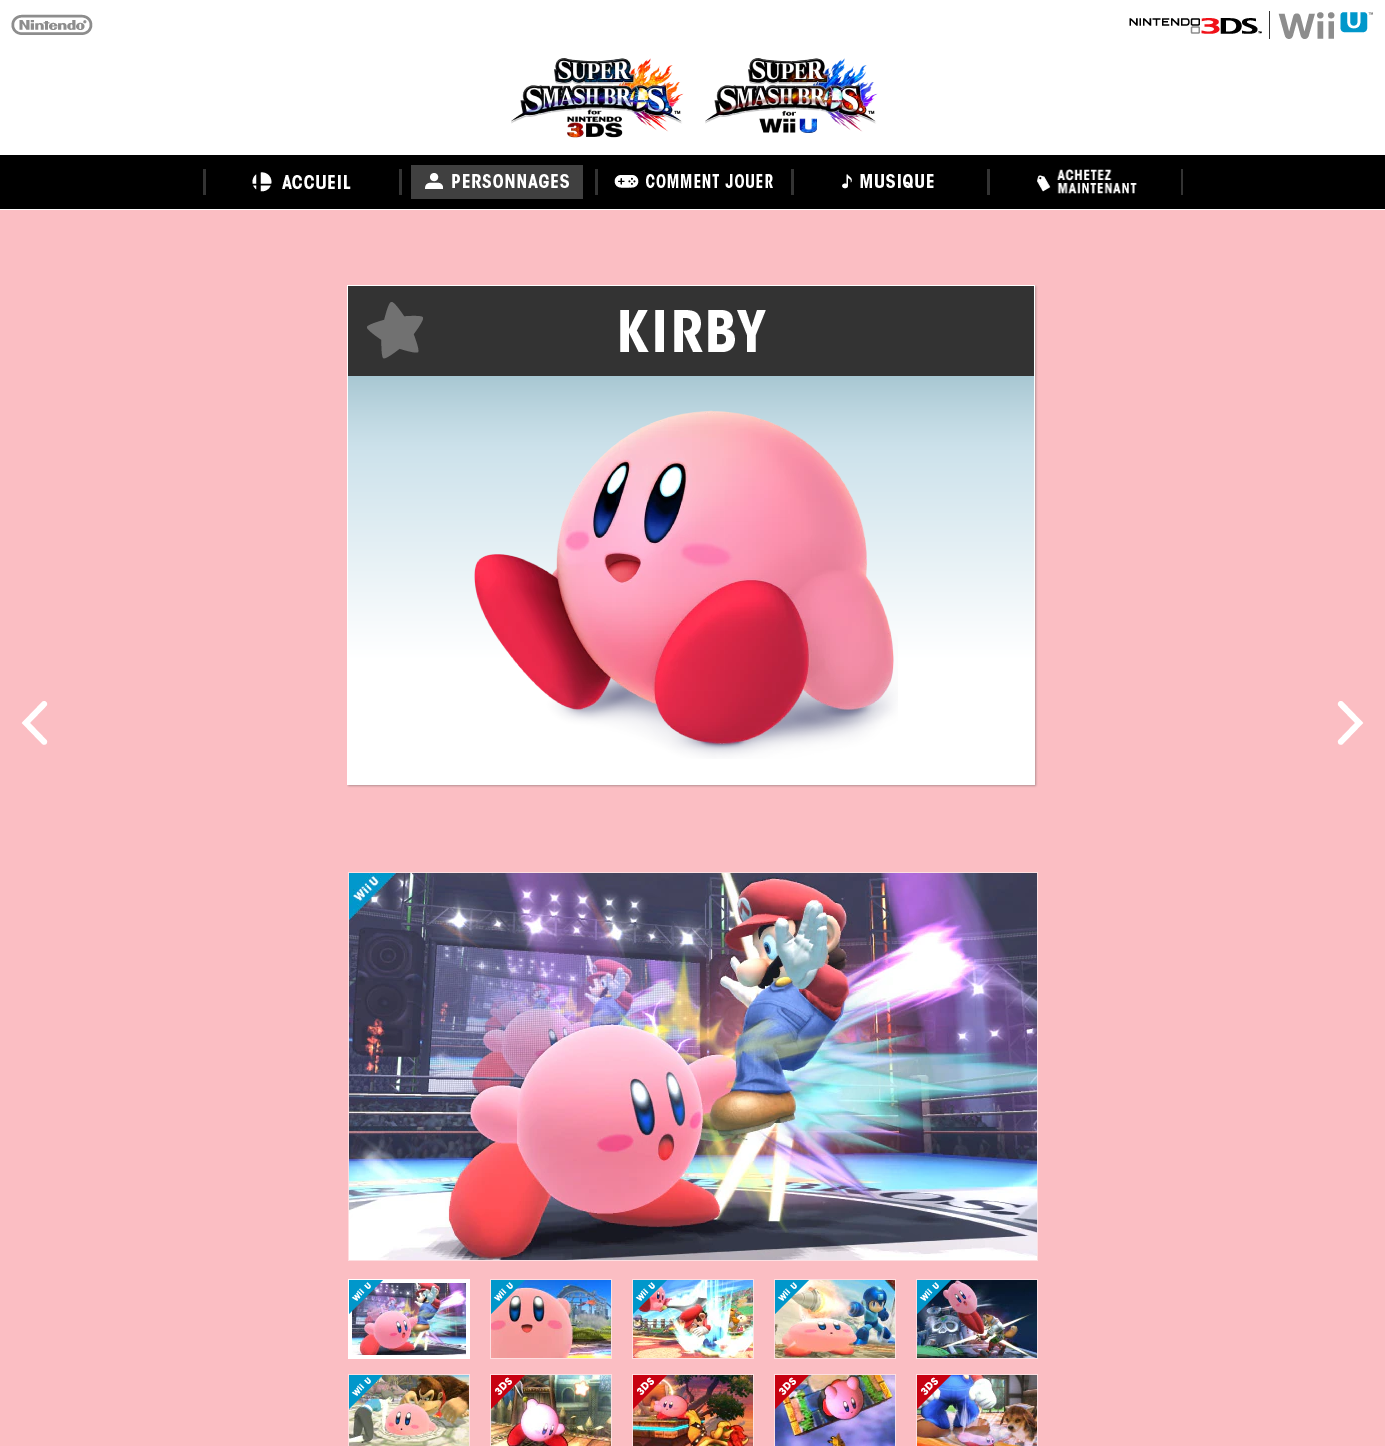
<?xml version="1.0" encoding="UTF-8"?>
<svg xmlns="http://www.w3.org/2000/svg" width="1385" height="1446">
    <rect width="100%" height="100%" fill="#FFFFFF"/>
    <image x="11" y="14" width="82" height="21" href="img_01.png"/>
    <rect x="1269" y="11" width="1" height="28" fill="#333333"/>
    <image x="1129" y="18" width="133" height="16" href="img_02.png"/>
    <image x="1278" y="12" width="95" height="27" href="img_03.png"/>
    <image x="511" y="58" width="173" height="80" href="img_04.png"/>
    <image x="705" y="58" width="173" height="75" href="img_05.png"/>
    <rect x="0" y="155" width="1385" height="54" fill="#000000"/>
    <rect x="1181" y="169" width="2" height="26" fill="#333333"/>
    <rect x="203" y="169" width="3" height="26" fill="#333333"/>
    <image x="252" y="172" width="99" height="20" href="img_06.png"/>
    <rect x="399" y="169" width="3" height="26" fill="#333333"/>
    <image x="411" y="165" width="172" height="34" href="img_07.png"/>
    <rect x="595" y="169" width="3" height="26" fill="#333333"/>
    <image x="614" y="174" width="159" height="14" href="img_08.png"/>
    <rect x="791" y="169" width="3" height="26" fill="#333333"/>
    <image x="842" y="174" width="92" height="15" href="img_09.png"/>
    <rect x="987" y="169" width="3" height="26" fill="#333333"/>
    <image x="1037" y="169" width="100" height="25" href="img_10.png"/>
    <rect x="0" y="210" width="1385" height="1236" fill="#FBBEC3"/>
    <image x="347" y="285" width="691" height="503" href="img_11.png"/>
    <image x="474" y="410" width="424" height="349" href="img_12.png"/>
    <rect x="348" y="872" width="690" height="389" fill="#FDDFE1"/>
    <image x="349" y="873" width="688" height="387" href="img_13.png"/>
    <rect x="348" y="1279" width="122" height="80" fill="#FFFFFF"/>
    <image x="352" y="1283" width="114" height="72" href="img_15.png"/>
    <image x="349" y="1280" width="34" height="34" href="img_14.png"/>
    <rect x="490" y="1279" width="122" height="80" fill="#FDDFE1"/>
    <image x="491" y="1280" width="120" height="78" href="img_16.png"/>
    <image x="491" y="1280" width="34" height="34" href="img_17.png"/>
    <rect x="632" y="1279" width="122" height="80" fill="#FDDFE1"/>
    <image x="633" y="1280" width="120" height="78" href="img_18.png"/>
    <image x="633" y="1280" width="34" height="34" href="img_19.png"/>
    <rect x="774" y="1279" width="122" height="80" fill="#FDDFE1"/>
    <image x="775" y="1280" width="120" height="78" href="img_20.png"/>
    <image x="775" y="1280" width="34" height="34" href="img_21.png"/>
    <rect x="916" y="1279" width="122" height="80" fill="#FDDFE1"/>
    <image x="917" y="1280" width="120" height="78" href="img_22.png"/>
    <image x="917" y="1280" width="34" height="34" href="img_23.png"/>
    <rect x="348" y="1374" width="122" height="72" fill="#FDDFE1"/>
    <image x="349" y="1375" width="120" height="71" href="img_24.png"/>
    <image x="349" y="1375" width="34" height="34" href="img_25.png"/>
    <rect x="490" y="1374" width="122" height="72" fill="#FDDFE1"/>
    <image x="491" y="1375" width="120" height="71" href="img_26.png"/>
    <image x="491" y="1375" width="34" height="34" href="img_27.png"/>
    <rect x="632" y="1374" width="122" height="72" fill="#FDDFE1"/>
    <image x="633" y="1375" width="120" height="71" href="img_28.png"/>
    <image x="633" y="1375" width="34" height="34" href="img_29.png"/>
    <rect x="774" y="1374" width="122" height="72" fill="#FDDFE1"/>
    <image x="775" y="1375" width="120" height="71" href="img_30.png"/>
    <image x="775" y="1375" width="34" height="34" href="img_31.png"/>
    <rect x="916" y="1374" width="122" height="72" fill="#FDDFE1"/>
    <image x="917" y="1375" width="120" height="71" href="img_32.png"/>
    <image x="917" y="1375" width="34" height="34" href="img_33.png"/>
    <image x="21" y="701" width="27" height="44" href="img_34.png"/>
    <image x="1337" y="701" width="27" height="44" href="img_35.png"/>
</svg>
